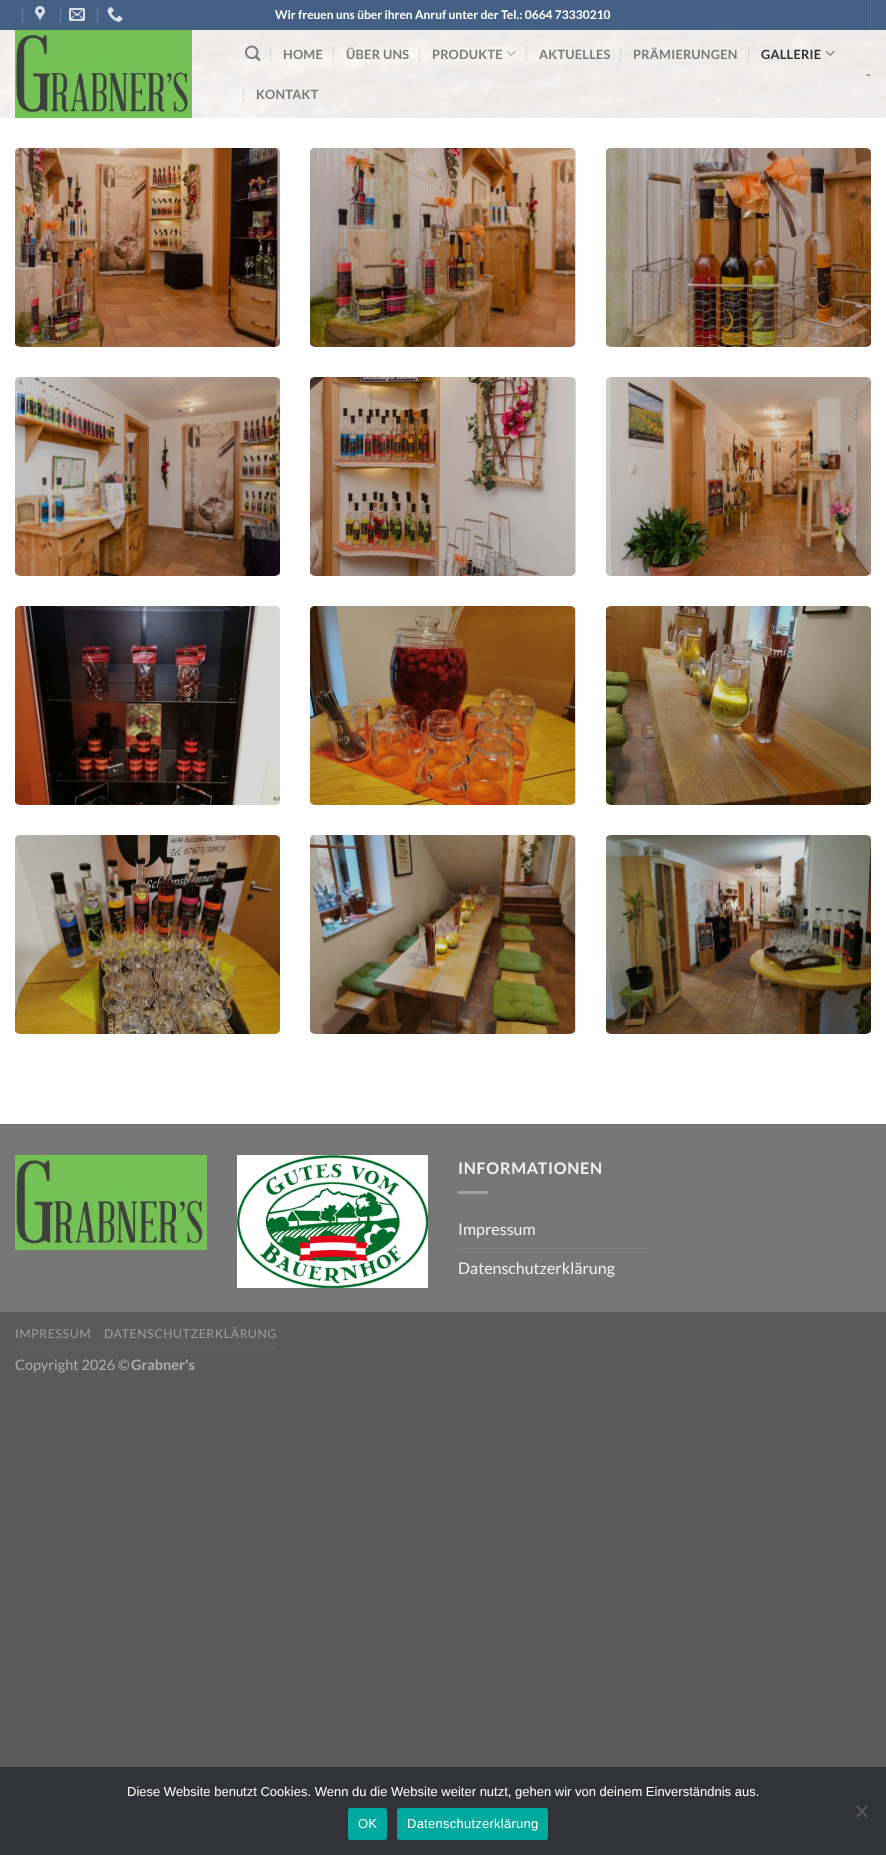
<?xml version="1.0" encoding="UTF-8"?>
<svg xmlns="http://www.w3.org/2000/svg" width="886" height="1855">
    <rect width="100%" height="100%" fill="#5B5B5B"/>
    <rect x="0" y="118" width="886" height="1006" fill="#FFFFFF"/>
    <rect x="0" y="0" width="886" height="30" fill="#446084"/>
    <rect x="22" y="8" width="1" height="15" fill="#69809D"/>
    <image x="35" y="6" width="10" height="16" href="img_01.png"/>
    <rect x="60" y="8" width="1" height="15" fill="#69809D"/>
    <image x="69" y="8" width="16" height="13" href="img_02.png"/>
    <rect x="97" y="8" width="1" height="15" fill="#69809D"/>
    <image x="107" y="7" width="16" height="15" href="img_03.png"/>
    <text x="275" y="19" font-family="Lato" font-size="12" font-weight="700" fill="#FFFFFF">Wir freuen uns über ihren Anruf unter der Tel.: 0664 73330210</text>
    <rect x="870" y="0" width="1" height="30" fill="#577090"/>
    <image x="0" y="30" width="886" height="88" href="img_04.png"/>
    <image x="15" y="30" width="177" height="88" href="img_05.png"/>
    <image x="245" y="45" width="16" height="16" href="img_06.png"/>
    <rect x="270" y="47" width="1" height="15" fill="#000000" fill-opacity="0.1"/>
    <text x="283" y="59" font-family="Lato" font-size="12.75" font-weight="700" letter-spacing="0.25" fill="#7B7B7A">HOME</text>
    <rect x="333" y="47" width="1" height="15" fill="#000000" fill-opacity="0.1"/>
    <text x="346" y="59" font-family="Lato" font-size="12.75" font-weight="700" letter-spacing="0.25" fill="#7B7B7A">ÜBER UNS</text>
    <rect x="419" y="47" width="1" height="15" fill="#000000" fill-opacity="0.1"/>
    <text x="432" y="59" font-family="Lato" font-size="12.75" font-weight="700" letter-spacing="0.25" fill="#7B7B7A">PRODUKTE</text>
    <image x="506" y="50" width="10" height="6" href="img_07.png"/>
    <rect x="526" y="47" width="1" height="15" fill="#000000" fill-opacity="0.1"/>
    <text x="539" y="59" font-family="Lato" font-size="12.75" font-weight="700" letter-spacing="0.25" fill="#7B7B7A">AKTUELLES</text>
    <rect x="620" y="47" width="1" height="15" fill="#000000" fill-opacity="0.1"/>
    <text x="633" y="59" font-family="Lato" font-size="12.75" font-weight="700" letter-spacing="0.25" fill="#7B7B7A">PRÄMIERUNGEN</text>
    <rect x="748" y="47" width="1" height="15" fill="#D6D5D4"/>
    <text x="761" y="59" font-family="Lato" font-size="12.75" font-weight="700" letter-spacing="0.25" fill="#323232">GALLERIE</text>
    <image x="825" y="50" width="10" height="6" href="img_08.png"/>
    <rect x="243" y="87" width="1" height="15" fill="#000000" fill-opacity="0.1"/>
    <text x="256" y="99" font-family="Lato" font-size="12.75" font-weight="700" letter-spacing="0.25" fill="#7B7B7A">KONTAKT</text>
    <text x="866" y="79" font-family="Lato" font-size="12.75" font-weight="700" letter-spacing="0.25" fill="#7B7B7A">-</text>
    <image x="15" y="148" width="265" height="199" href="img_09.png"/>
    <path d="M 20 148 C 17 148 15 150 15 152 V 343 C 15 345 17 347 20 347 H 275 C 278 347 280 345 280 343 V 152 C 280 150 278 148 275 148 Z" fill="#000000" fill-opacity="0.15"/>
    <image x="310" y="148" width="265" height="199" href="img_10.png"/>
    <path d="M 315 148 C 312 148 310 150 310 152 V 343 C 310 345 312 347 315 347 H 571 C 574 347 576 345 576 343 V 152 C 576 150 574 148 571 148 Z" fill="#000000" fill-opacity="0.15"/>
    <image x="606" y="148" width="265" height="199" href="img_11.png"/>
    <path d="M 611 148 C 608 148 606 150 606 152 V 343 C 606 345 608 347 611 347 H 866 C 869 347 871 345 871 343 V 152 C 871 150 869 148 866 148 Z" fill="#000000" fill-opacity="0.15"/>
    <image x="15" y="377" width="265" height="199" href="img_12.png"/>
    <path d="M 20 377 C 17 377 15 379 15 381 V 572 C 15 574 17 576 20 576 H 275 C 278 576 280 574 280 572 V 381 C 280 379 278 377 275 377 Z" fill="#000000" fill-opacity="0.15"/>
    <image x="310" y="377" width="265" height="199" href="img_13.png"/>
    <path d="M 315 377 C 312 377 310 379 310 381 V 572 C 310 574 312 576 315 576 H 571 C 574 576 576 574 576 572 V 381 C 576 379 574 377 571 377 Z" fill="#000000" fill-opacity="0.15"/>
    <image x="606" y="377" width="265" height="199" href="img_14.png"/>
    <path d="M 611 377 C 608 377 606 379 606 381 V 572 C 606 574 608 576 611 576 H 866 C 869 576 871 574 871 572 V 381 C 871 379 869 377 866 377 Z" fill="#000000" fill-opacity="0.15"/>
    <image x="15" y="606" width="265" height="199" href="img_15.png"/>
    <path d="M 20 606 C 17 606 15 608 15 610 V 801 C 15 803 17 805 20 805 H 275 C 278 805 280 803 280 801 V 610 C 280 608 278 606 275 606 Z" fill="#000000" fill-opacity="0.15"/>
    <image x="310" y="606" width="265" height="199" href="img_16.png"/>
    <path d="M 315 606 C 312 606 310 608 310 610 V 801 C 310 803 312 805 315 805 H 571 C 574 805 576 803 576 801 V 610 C 576 608 574 606 571 606 Z" fill="#000000" fill-opacity="0.15"/>
    <image x="606" y="606" width="265" height="199" href="img_17.png"/>
    <path d="M 611 606 C 608 606 606 608 606 610 V 801 C 606 803 608 805 611 805 H 866 C 869 805 871 803 871 801 V 610 C 871 608 869 606 866 606 Z" fill="#000000" fill-opacity="0.15"/>
    <image x="15" y="835" width="265" height="199" href="img_18.png"/>
    <path d="M 20 835 C 17 835 15 837 15 839 V 1030 C 15 1032 17 1034 20 1034 H 275 C 278 1034 280 1032 280 1030 V 839 C 280 837 278 835 275 835 Z" fill="#000000" fill-opacity="0.15"/>
    <image x="310" y="835" width="265" height="199" href="img_19.png"/>
    <path d="M 315 835 C 312 835 310 837 310 839 V 1030 C 310 1032 312 1034 315 1034 H 571 C 574 1034 576 1032 576 1030 V 839 C 576 837 574 835 571 835 Z" fill="#000000" fill-opacity="0.15"/>
    <image x="606" y="835" width="265" height="199" href="img_20.png"/>
    <path d="M 611 835 C 608 835 606 837 606 839 V 1030 C 606 1032 608 1034 611 1034 H 866 C 869 1034 871 1032 871 1030 V 839 C 871 837 869 835 866 835 Z" fill="#000000" fill-opacity="0.15"/>
    <rect x="0" y="1125" width="886" height="187" fill="#777777"/>
    <rect x="0" y="1124" width="886" height="1" fill="#717171"/>
    <image x="15" y="1155" width="192" height="95" href="img_21.png"/>
    <image x="237" y="1155" width="191" height="133" href="img_22.png"/>
    <text x="458" y="1174" font-family="Lato" font-size="16" font-weight="700" letter-spacing="0.75" fill="#F1F1F1">INFORMATIONEN</text>
    <rect x="458" y="1191" width="30" height="3" fill="#A0A0A0"/>
    <text x="458" y="1235" font-family="Lato" font-size="16" fill="#F1F1F1">Impressum</text>
    <rect x="458" y="1248" width="192" height="1" fill="#828282"/>
    <text x="458" y="1274" font-family="Lato" font-size="16" fill="#F1F1F1">Datenschutzerklärung</text>
    <rect x="15" y="1347" width="262" height="1" fill="#656565"/>
    <text x="15" y="1338" font-family="Lato" font-size="12.25" letter-spacing="0.6" fill="#9D9D9D">IMPRESSUM</text>
    <text x="104" y="1338" font-family="Lato" font-size="12.25" letter-spacing="0.6" fill="#9D9D9D">DATENSCHUTZERKLÄRUNG</text>
    <text x="15" y="1370" font-family="Lato" font-size="14.5" fill="#ADADAD">Copyright 2026 ©</text>
    <text x="131" y="1370" font-family="Lato" font-size="14.5" font-weight="700" fill="#ADADAD">Grabner's</text>
    <rect x="0" y="1767" width="886" height="88" fill="#32323A"/>
    <text x="127" y="1796" font-family="Liberation Sans" font-size="13" fill="#FFFFFF">Diese Website benutzt Cookies. Wenn du die Website weiter nutzt, gehen wir von deinem Einverständnis aus.</text>
    <path d="M 866.5 1805 L 868 1806.5 L 857.5 1817.5 L 856 1816 Z" fill="#59595D"/>
    <path d="M 856 1806.5 L 857.5 1805 L 868 1816 L 866.5 1817.5 Z" fill="#59595D"/>
    <rect x="348" y="1808" width="39" height="32" rx="3" fill="#00A99D"/>
    <text x="358" y="1828" font-family="Liberation Sans" font-size="13" letter-spacing="0.25" fill="#FFFFFF">OK</text>
    <rect x="397" y="1808" width="151" height="32" rx="3" fill="#00A99D"/>
    <text x="407" y="1828" font-family="Liberation Sans" font-size="13" letter-spacing="0.25" fill="#FFFFFF">Datenschutzerklärung</text>
</svg>
